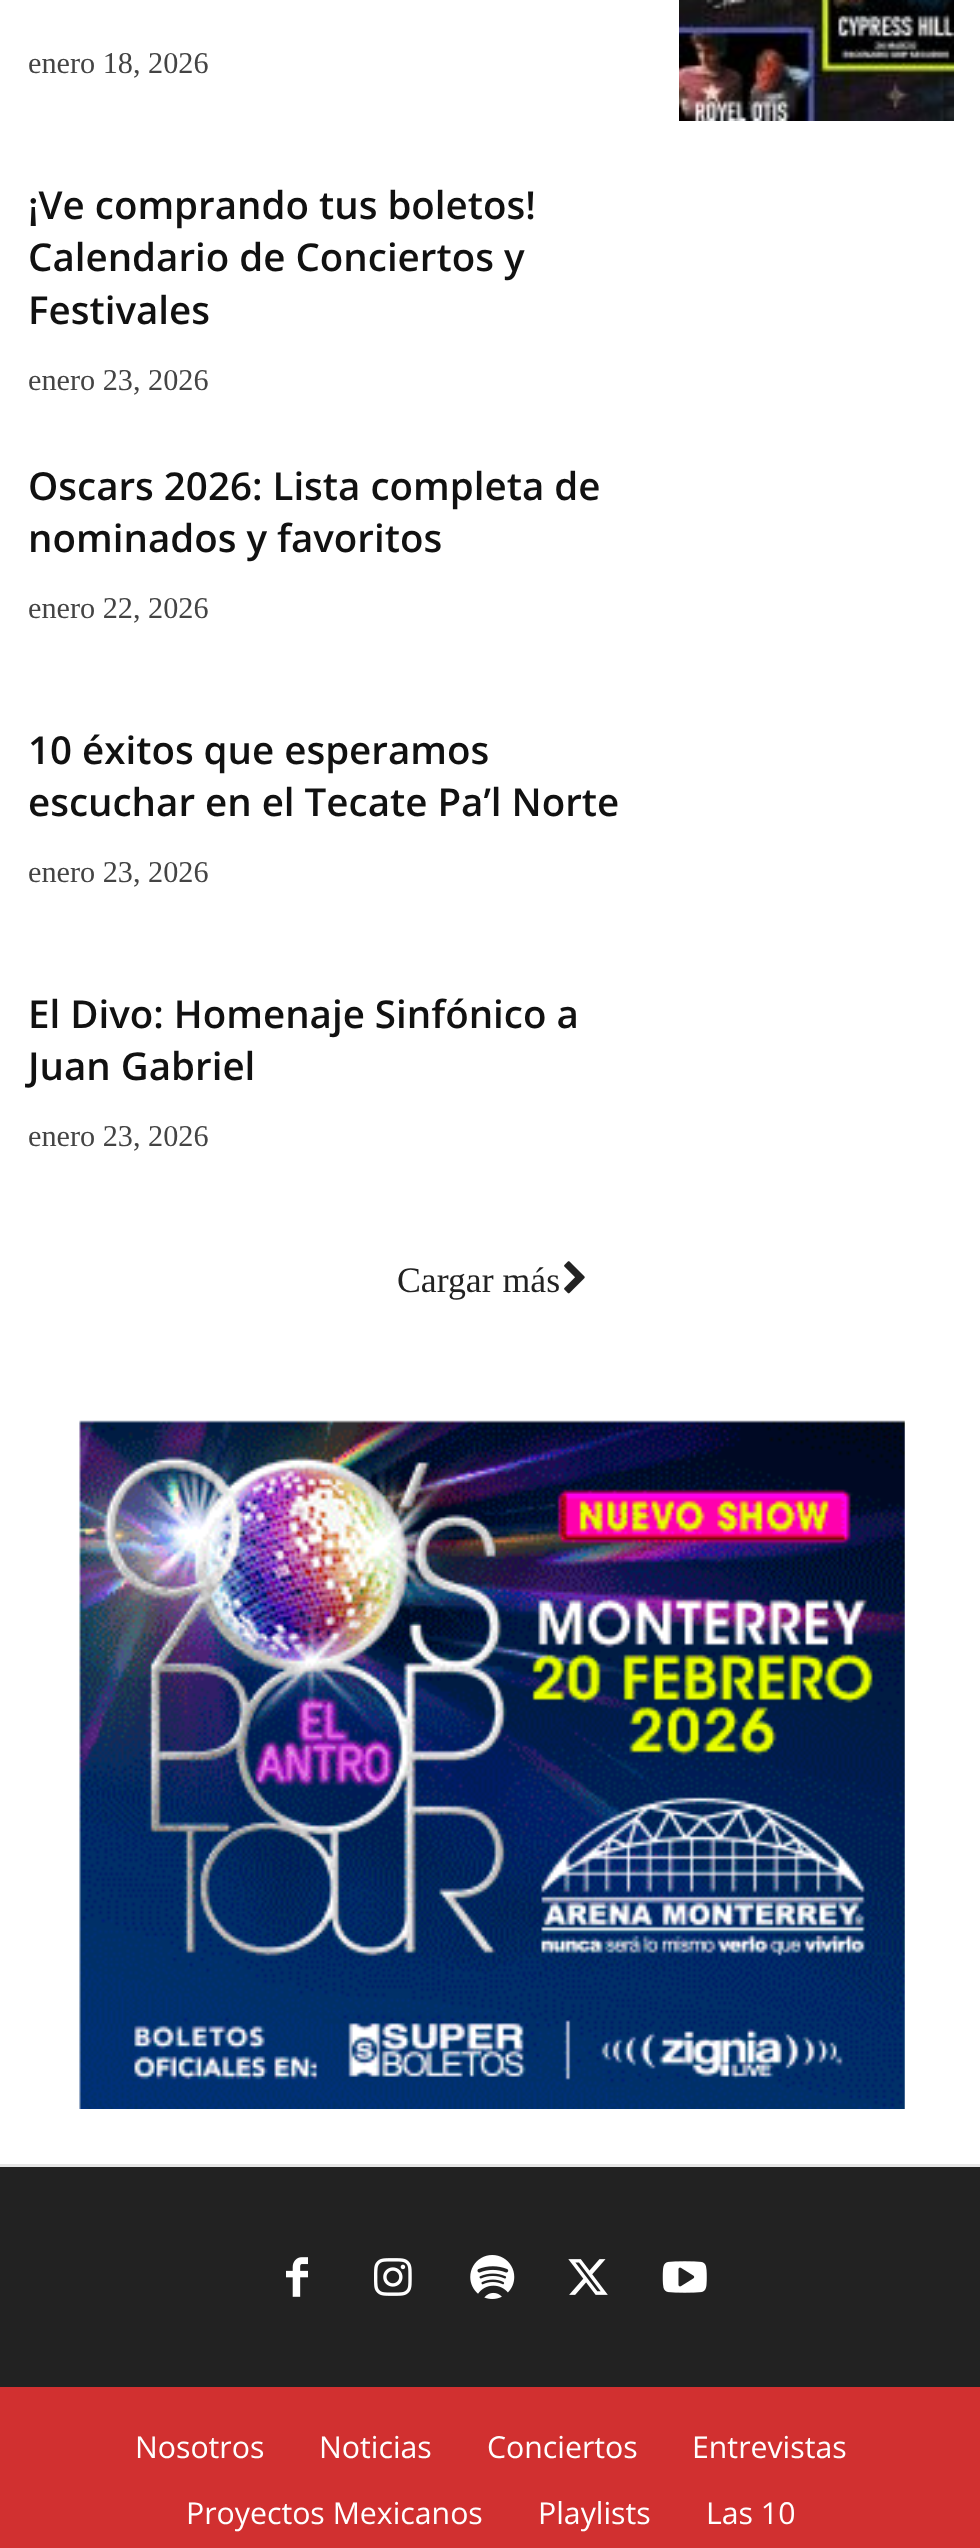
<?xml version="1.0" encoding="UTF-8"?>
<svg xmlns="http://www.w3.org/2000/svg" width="980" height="2548">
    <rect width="100%" height="100%" fill="#222222"/>
    <rect x="0" y="0" width="980" height="2164" fill="#FFFFFF"/>
    <rect x="0" y="2164" width="980" height="3" fill="#E6E6E6"/>
    <text x="28" y="73" font-family="Liberation Serif" font-size="30.25" fill="#444444">enero 18, 2026</text>
    <image x="679" y="0" width="275" height="121" href="img_01.png"/>
    <text font-family="Open Sans" font-size="38.5" font-weight="600" fill="#111111">
        <tspan x="28" y="219">¡Ve comprando tus boletos!</tspan>
        <tspan x="28" y="271">Calendario de Conciertos y</tspan>
        <tspan x="28" y="324">Festivales</tspan>
    </text>
    <text x="28" y="390" font-family="Liberation Serif" font-size="30.25" fill="#444444">enero 23, 2026</text>
    <text font-family="Open Sans" font-size="38.5" font-weight="600" fill="#111111">
        <tspan x="28" y="500">Oscars 2026: Lista completa de</tspan>
        <tspan x="28" y="552">nominados y favoritos</tspan>
    </text>
    <text x="28" y="618" font-family="Liberation Serif" font-size="30.25" fill="#444444">enero 22, 2026</text>
    <text font-family="Open Sans" font-size="38.5" font-weight="600" fill="#111111">
        <tspan x="28" y="764">10 éxitos que esperamos</tspan>
        <tspan x="28" y="816">escuchar en el Tecate Pa’l Norte</tspan>
    </text>
    <text x="28" y="882" font-family="Liberation Serif" font-size="30.25" fill="#444444">enero 23, 2026</text>
    <text font-family="Open Sans" font-size="38.5" font-weight="600" fill="#111111">
        <tspan x="28" y="1028">El Divo: Homenaje Sinfónico a</tspan>
        <tspan x="28" y="1080">Juan Gabriel</tspan>
    </text>
    <text x="28" y="1146" font-family="Liberation Serif" font-size="30.25" fill="#444444">enero 23, 2026</text>
    <text x="397" y="1292" font-family="Liberation Serif" font-size="35.75" fill="#222222">Cargar más</text>
    <image x="564" y="1261" width="21" height="33" href="img_02.png"/>
    <image x="79" y="1420" width="826" height="689" href="img_03.png"/>
    <image x="286" y="2257" width="22" height="40" href="img_04.png"/>
    <image x="374" y="2258" width="38" height="38" href="img_05.png"/>
    <image x="470" y="2255" width="45" height="44" href="img_06.png"/>
    <image x="568" y="2259" width="40" height="36" href="img_07.png"/>
    <image x="662" y="2261" width="45" height="32" href="img_08.png"/>
    <rect x="0" y="2387" width="980" height="161" fill="#D13030"/>
    <text x="135" y="2458" font-family="Open Sans" font-size="30.25" fill="#FFFFFF">Nosotros</text>
    <text x="319" y="2458" font-family="Open Sans" font-size="30.25" fill="#FFFFFF">Noticias</text>
    <text x="487" y="2458" font-family="Open Sans" font-size="30.25" fill="#FFFFFF">Conciertos</text>
    <text x="692" y="2458" font-family="Open Sans" font-size="30.25" fill="#FFFFFF">Entrevistas</text>
    <text x="186" y="2524" font-family="Open Sans" font-size="30.25" fill="#FFFFFF">Proyectos Mexicanos</text>
    <text x="538" y="2524" font-family="Open Sans" font-size="30.25" fill="#FFFFFF">Playlists</text>
    <text x="706" y="2524" font-family="Open Sans" font-size="30.25" fill="#FFFFFF">Las 10</text>
</svg>
